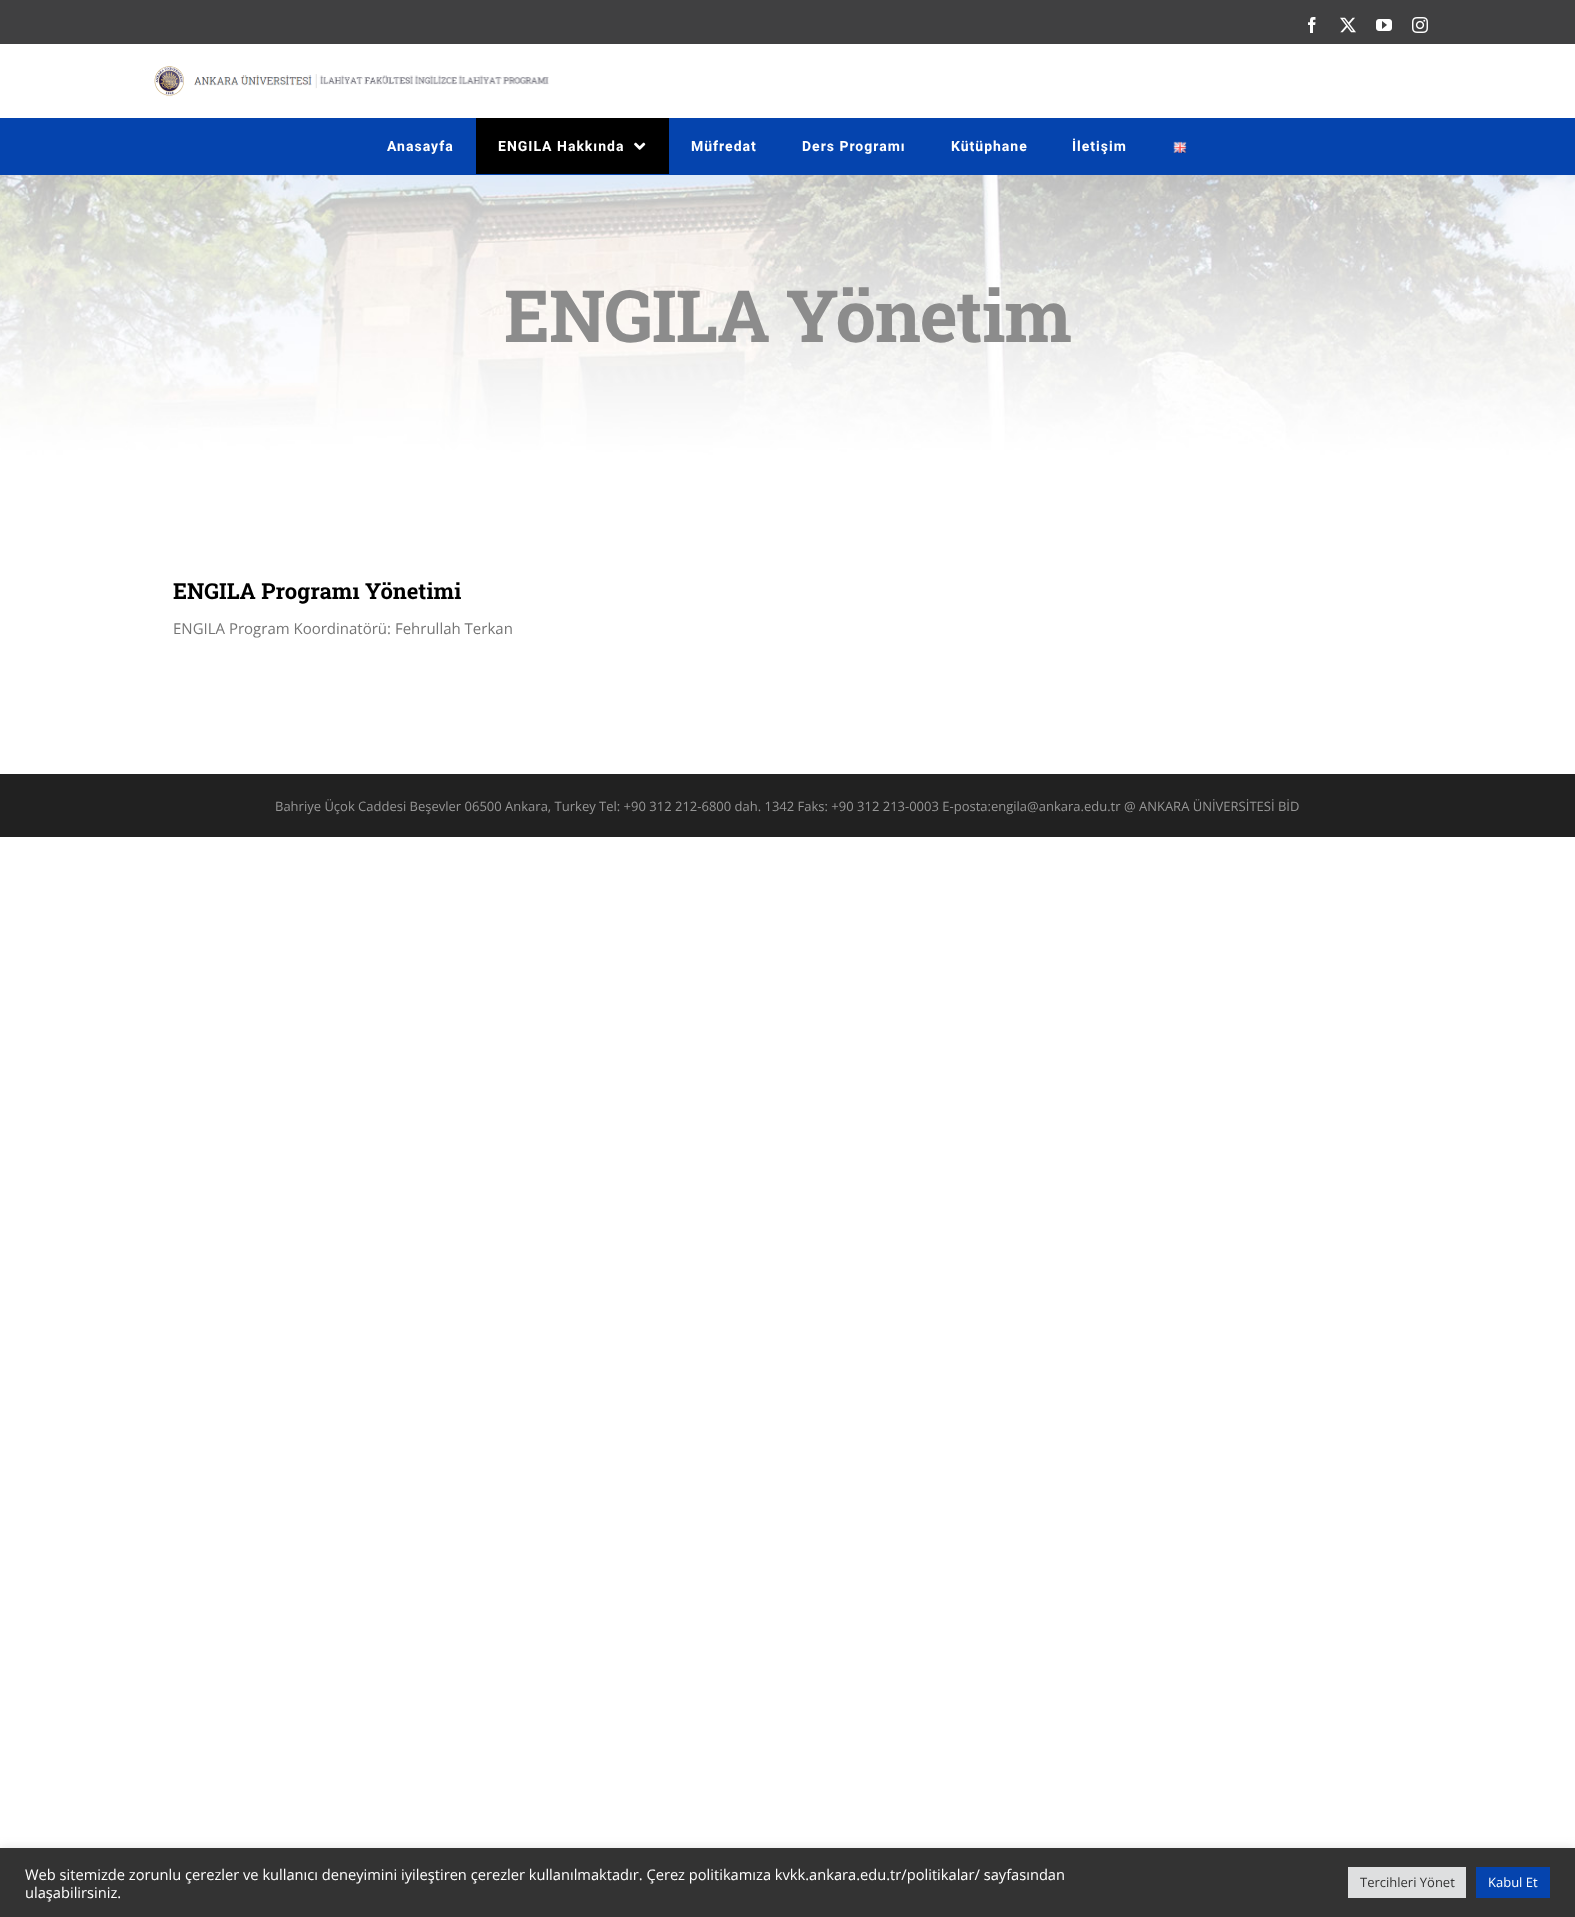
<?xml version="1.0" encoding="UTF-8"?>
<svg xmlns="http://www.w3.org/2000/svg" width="1575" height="1917">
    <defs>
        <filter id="blur1" x="-50%" y="-200%" width="200%" height="500%"><feGaussianBlur stdDeviation="5"/></filter>
    </defs>
    <rect width="100%" height="100%" fill="#FFFFFF"/>
    <rect x="0" y="0" width="1575" height="44" fill="#404041"/>
    <image x="1308" y="17" width="8" height="16" href="img_01.png"/>
    <image x="1340" y="17" width="16" height="16" href="img_02.png"/>
    <image x="1376" y="19" width="16" height="12" href="img_03.png"/>
    <image x="1412" y="17" width="16" height="16" href="img_04.png"/>
    <image x="154" y="66" width="395" height="31" href="img_05.png"/>
    <rect x="0" y="118" width="1575" height="57" fill="#0544AE"/>
    <text x="387" y="151" font-family="Roboto" font-size="14" font-weight="700" letter-spacing="1" fill="#FFFFFF">Anasayfa</text>
    <rect x="476" y="118" width="193" height="56" fill="#000000"/>
    <text x="498" y="151" font-family="Roboto" font-size="14" font-weight="700" letter-spacing="1" fill="#FFFFFF">ENGILA Hakkında</text>
    <image x="634" y="142" width="12" height="8" href="img_06.png"/>
    <text x="691" y="151" font-family="Roboto" font-size="14" font-weight="700" letter-spacing="1" fill="#FFFFFF">Müfredat</text>
    <text x="802" y="151" font-family="Roboto" font-size="14" font-weight="700" letter-spacing="1" fill="#FFFFFF">Ders Programı</text>
    <text x="951" y="151" font-family="Roboto" font-size="14" font-weight="700" letter-spacing="1" fill="#FFFFFF">Kütüphane</text>
    <text x="1072" y="151" font-family="Roboto" font-size="14" font-weight="700" letter-spacing="1" fill="#FFFFFF">İletişim</text>
    <image x="1173" y="141" width="14" height="12" href="img_07.png"/>
    <image x="0" y="175" width="1575" height="280" href="img_08.png"/>
    <text x="504" y="342" font-family="Roboto Slab" font-size="72" font-weight="700" letter-spacing="-1" fill="#8C8C8C">ENGILA Yönetim</text>
    <text x="173" y="599" font-family="Roboto Slab" font-size="22" font-weight="700" fill="#000000">ENGILA Programı Yönetimi</text>
    <text x="173" y="634" font-family="Open Sans" font-size="15" fill="#757575">ENGILA Program Koordinatörü: Fehrullah Terkan</text>
    <rect x="0" y="774" width="1575" height="63" fill="#212121"/>
    <text x="275" y="811" font-family="Open Sans" font-size="13" fill="#969696">Bahriye Üçok Caddesi Beşevler 06500 Ankara, Turkey Tel: +90 312 212-6800 dah. 1342 Faks: +90 312 213-0003 E-posta:engila@ankara.edu.tr @ ANKARA ÜNİVERSİTESİ BİD</text>
    <rect x="0" y="1847" width="1575" height="69" fill="#ACABAB" fill-opacity="0.3" filter="url(#blur1)"/>
    <rect x="0" y="1848" width="1575" height="69" fill="#333333"/>
    <text font-family="Open Sans" font-size="14.67" fill="#FFFFFF">
        <tspan x="25" y="1880">Web sitemizde zorunlu çerezler ve kullanıcı deneyimini iyileştiren çerezler kullanılmaktadır. Çerez politikamıza kvkk.ankara.edu.tr/politikalar/ sayfasından</tspan>
        <tspan x="25" y="1898">ulaşabilirsiniz.</tspan>
    </text>
    <rect x="1348" y="1867" width="118" height="31" fill="#DEDFE0"/>
    <text x="1360" y="1887" font-family="Open Sans" font-size="13" fill="#333333">Tercihleri Yönet</text>
    <rect x="1476" y="1867" width="74" height="31" fill="#0544AE"/>
    <text x="1488" y="1887" font-family="Open Sans" font-size="13" fill="#FFFFFF">Kabul Et</text>
</svg>
